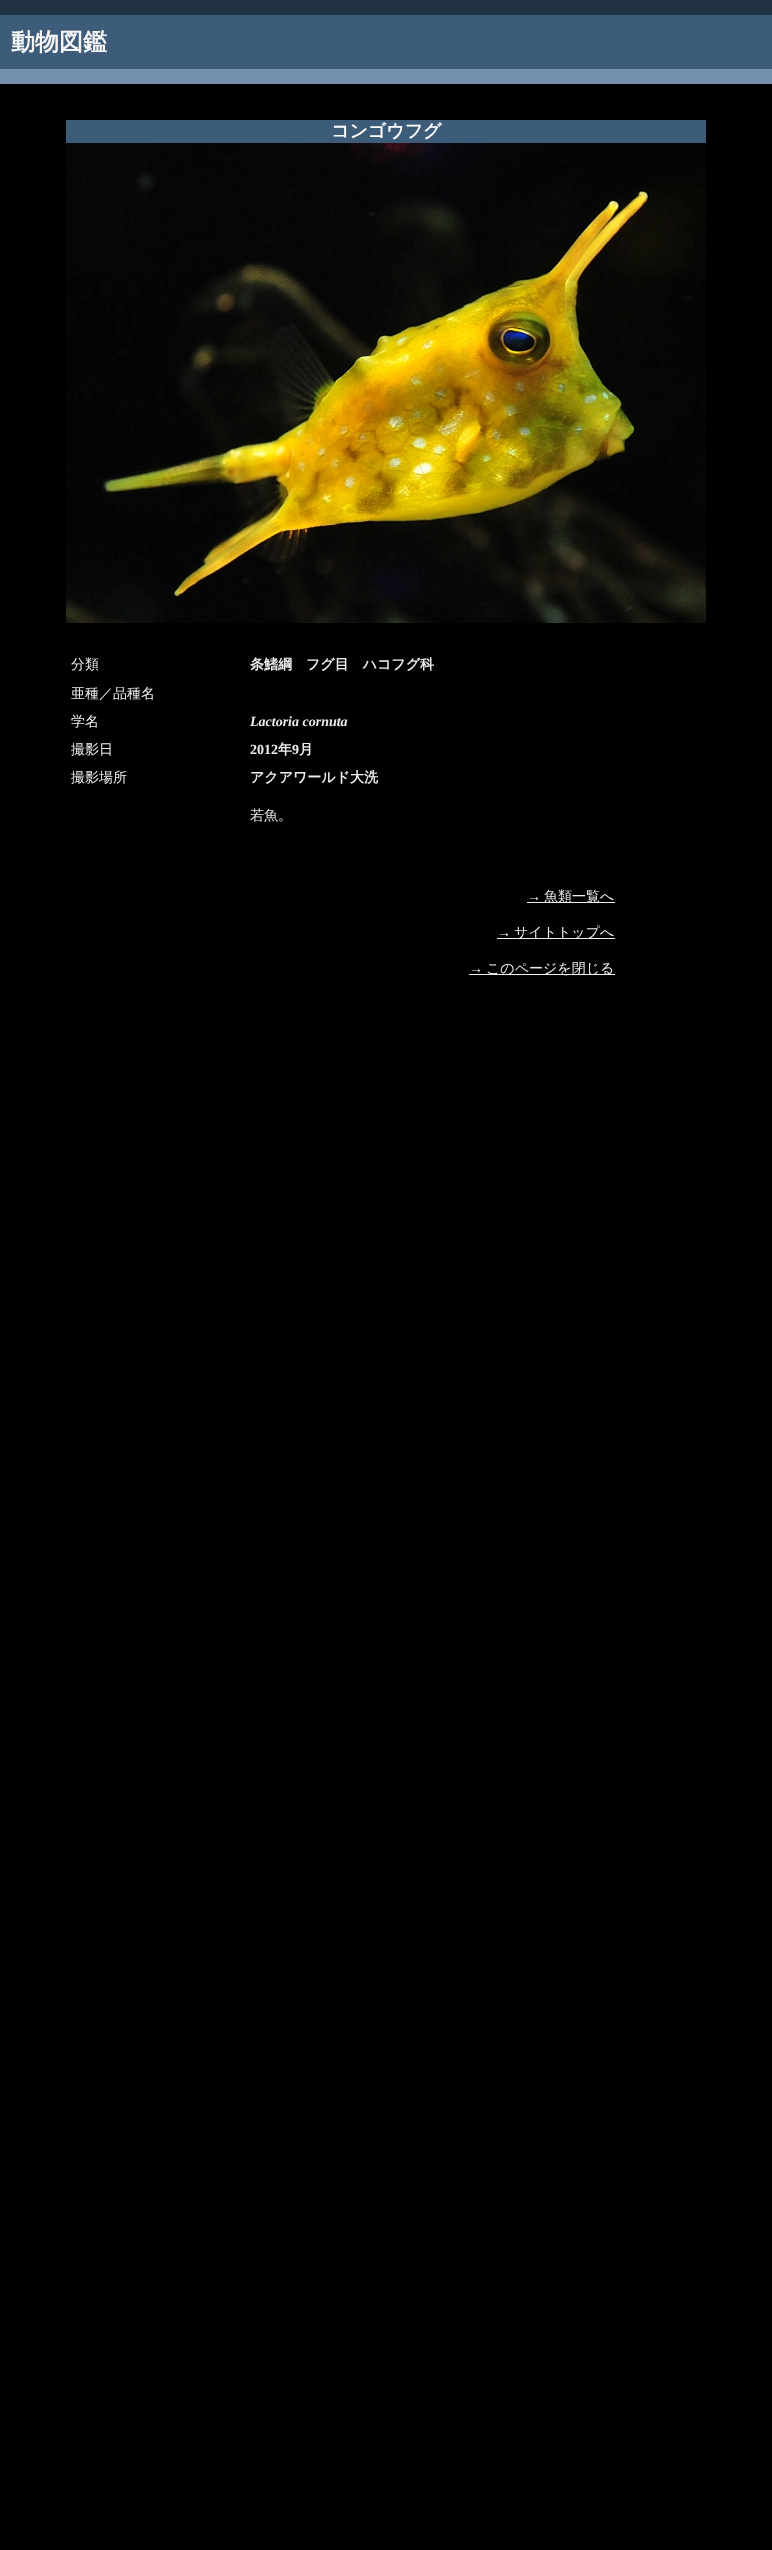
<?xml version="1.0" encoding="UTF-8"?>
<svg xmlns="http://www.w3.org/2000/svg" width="772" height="2550">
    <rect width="100%" height="100%" fill="#000001"/>
    <rect x="0" y="0" width="772" height="15" fill="#213242"/>
    <rect x="0" y="15" width="772" height="54" fill="#3D5C7A"/>
    <text x="11" y="50" font-family="WenQuanYi Zen Hei" font-size="24" font-weight="700" fill="#F5F5F6">動物図鑑</text>
    <rect x="0" y="69" width="772" height="15" fill="#7590AE"/>
    <rect x="66" y="120" width="640" height="23" fill="#3D5C7A"/>
    <text x="331" y="137" font-family="WenQuanYi Zen Hei" font-size="18" font-weight="700" fill="#FFFFFF">コンゴウフグ</text>
    <image x="66" y="143" width="640" height="480" href="img_01.png"/>
    <text x="71" y="669" font-family="WenQuanYi Zen Hei" font-size="14" font-weight="500" fill="#EEEEED">分類</text>
    <text x="250" y="669" font-family="WenQuanYi Zen Hei" font-size="14" font-weight="700" fill="#EEEEED">条鰭綱　フグ目　ハコフグ科</text>
    <text x="71" y="698" font-family="WenQuanYi Zen Hei" font-size="14" font-weight="500" fill="#EEEEED">亜種／品種名</text>
    <text x="71" y="726" font-family="WenQuanYi Zen Hei" font-size="14" font-weight="500" fill="#EEEEED">学名</text>
    <text x="250" y="726" font-family="Liberation Serif" font-size="14" font-weight="700" font-style="italic" fill="#EEEEED">Lactoria cornuta</text>
    <text x="71" y="754" font-family="WenQuanYi Zen Hei" font-size="14" font-weight="500" fill="#EEEEED">撮影日</text>
    <text x="250" y="754" font-family="Liberation Serif" font-size="14" font-weight="700" fill="#EEEEED">2012</text>
    <text x="278" y="754" font-family="WenQuanYi Zen Hei" font-size="14" font-weight="700" fill="#EEEEED">年</text>
    <text x="292" y="754" font-family="Liberation Serif" font-size="14" font-weight="700" fill="#EEEEED">9</text>
    <text x="299" y="754" font-family="WenQuanYi Zen Hei" font-size="14" font-weight="700" fill="#EEEEED">月</text>
    <text x="71" y="782" font-family="WenQuanYi Zen Hei" font-size="14" font-weight="500" fill="#EEEEED">撮影場所</text>
    <text x="250" y="782" font-family="WenQuanYi Zen Hei" font-size="14" font-weight="700" fill="#EEEEED">アクアワールド大洗</text>
    <text x="250" y="820" font-family="WenQuanYi Zen Hei" font-size="14" font-weight="500" fill="#EEEEED">若魚。</text>
    <text x="527" y="901" font-family="Liberation Serif" font-size="14" fill="#EEEEED">→</text>
    <rect x="527" y="902" width="88" height="1" fill="#EEEEED"/>
    <text x="544" y="901" font-family="WenQuanYi Zen Hei" font-size="14" font-weight="500" fill="#EEEEED">魚類一覧へ</text>
    <text x="497" y="937" font-family="Liberation Serif" font-size="14" fill="#EEEEED">→</text>
    <rect x="497" y="938" width="118" height="1" fill="#EEEEED"/>
    <text x="514" y="937" font-family="WenQuanYi Zen Hei" font-size="14" font-weight="500" fill="#EEEEED">サイトトップへ</text>
    <text x="469" y="973" font-family="Liberation Serif" font-size="14" fill="#EEEEED">→</text>
    <rect x="469" y="974" width="146" height="1" fill="#EEEEED"/>
    <text x="486" y="973" font-family="WenQuanYi Zen Hei" font-size="14" font-weight="500" fill="#EEEEED">このページを閉じる</text>
</svg>
